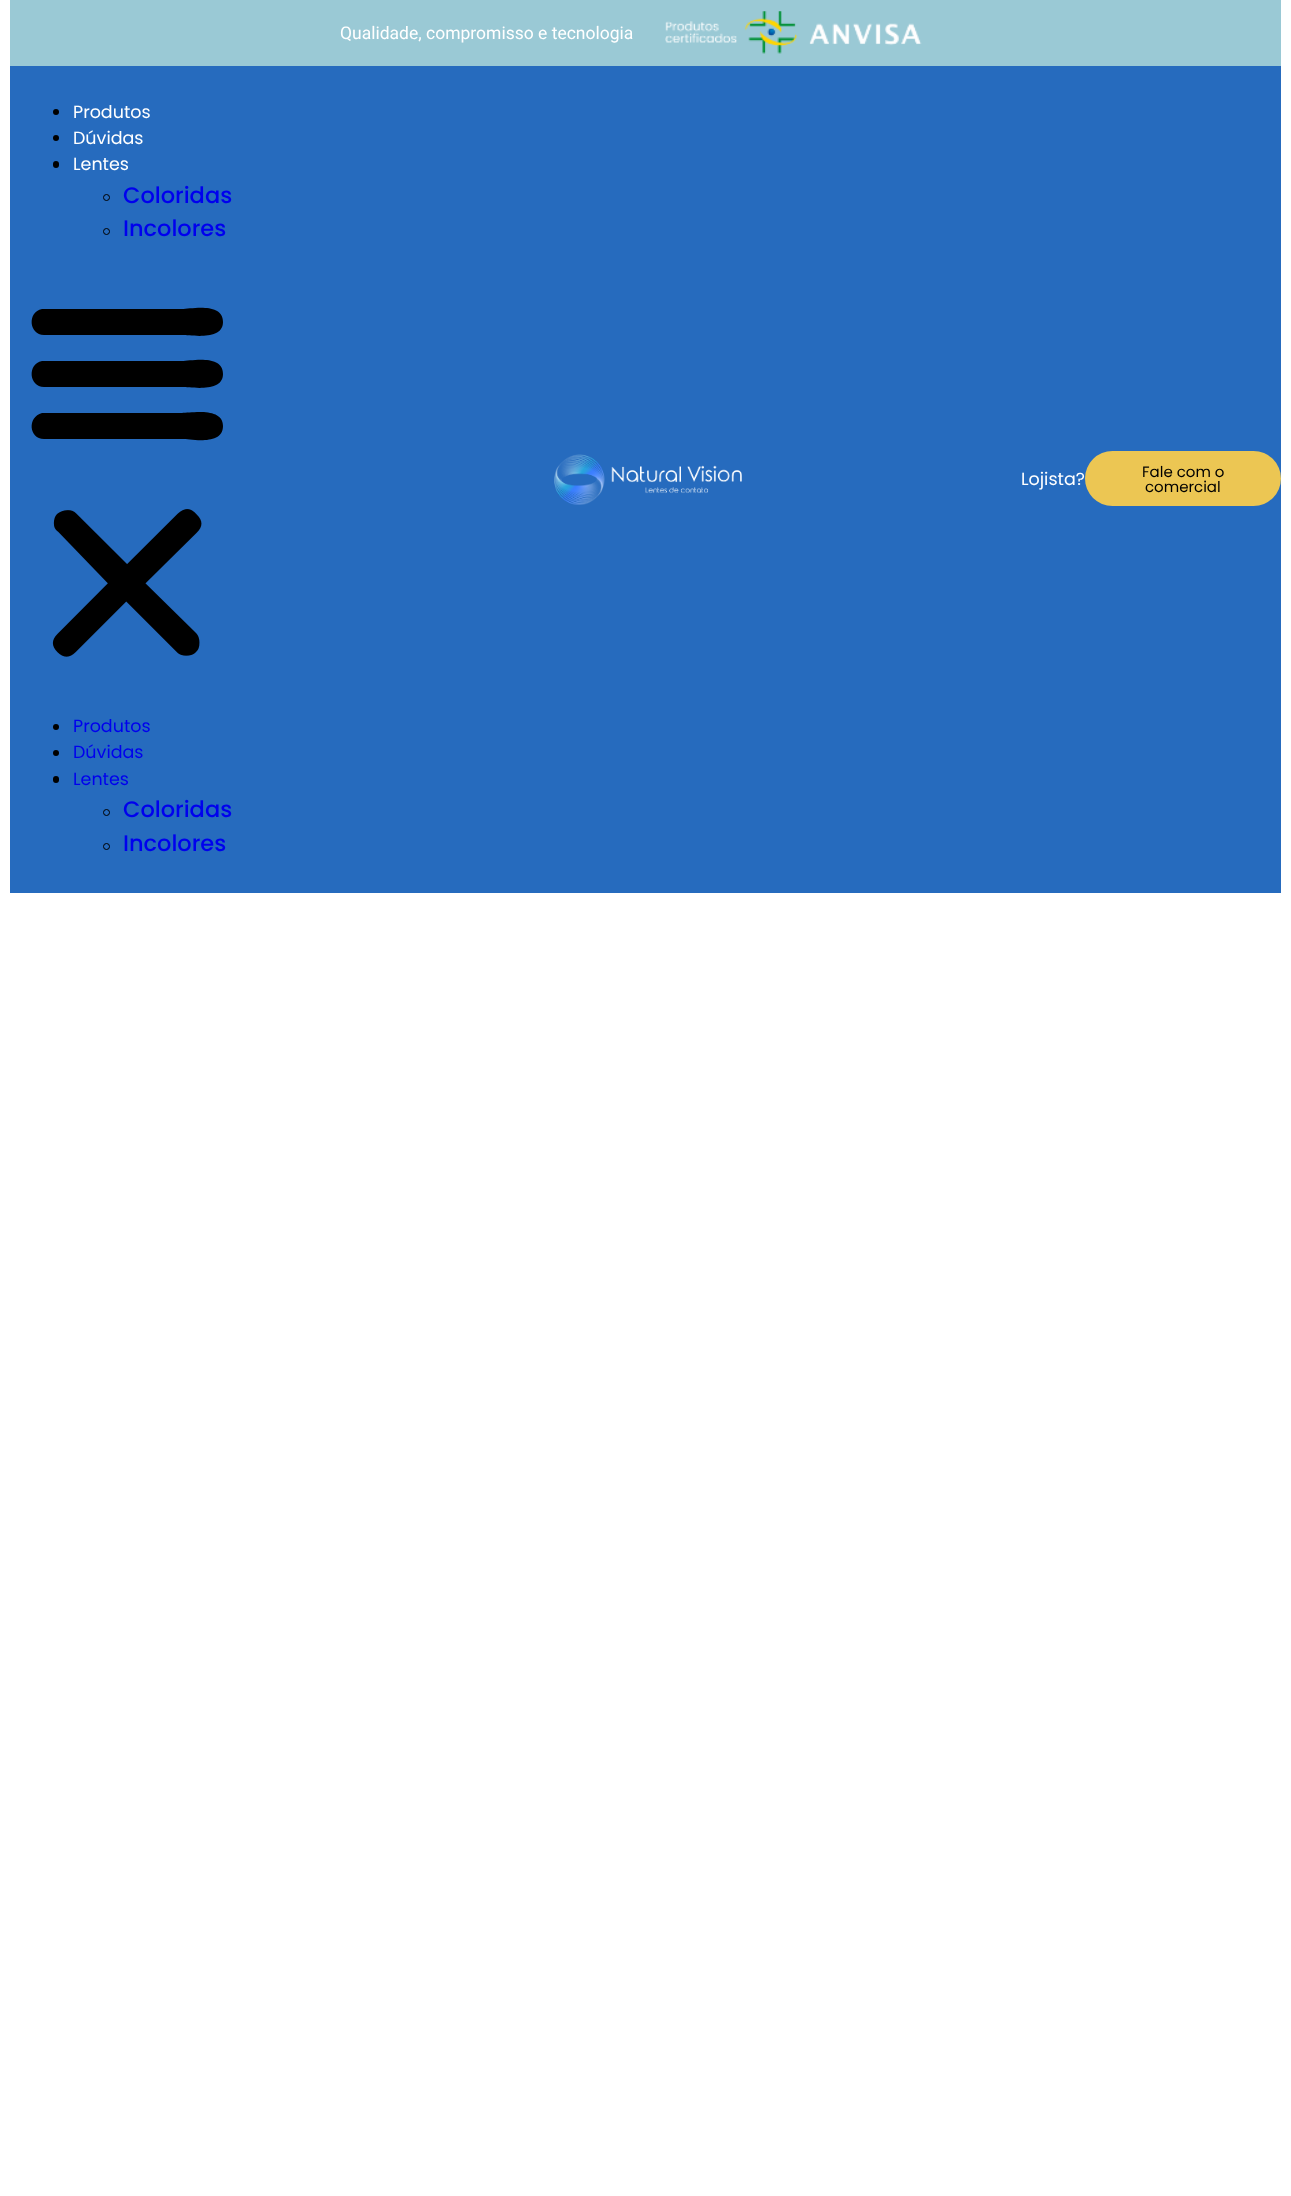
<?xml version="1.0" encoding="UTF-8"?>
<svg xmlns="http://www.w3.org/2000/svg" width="1291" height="2196">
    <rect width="100%" height="100%" fill="#FFFFFF"/>
    <rect x="10" y="0" width="1271" height="66" fill="#9AC9D5"/>
    <text x="340" y="39" font-family="Roboto" font-size="17.5" fill="#FFFFFF">Qualidade, compromisso e tecnologia</text>
    <image x="665" y="11" width="257" height="43" href="img_01.png"/>
    <rect x="10" y="66" width="1271" height="827" fill="#266BBE"/>
    <circle cx="56" cy="112" r="3" fill="#000000"/>
    <text x="73" y="118" font-family="Poppins" font-size="17.5" fill="#FFFFFF">Produtos</text>
    <circle cx="56" cy="138" r="3" fill="#000000"/>
    <text x="73" y="144" font-family="Poppins" font-size="17.5" fill="#FFFFFF">Dúvidas</text>
    <rect x="53" y="161" width="6" height="7" rx="3" fill="#000000"/>
    <text x="73" y="170" font-family="Poppins" font-size="17.5" fill="#FFFFFF">Lentes</text>
    <circle cx="106.5" cy="197.5" r="3" fill="none" stroke="#000000"/>
    <text x="123" y="203" font-family="Poppins" font-size="22.5" font-weight="500" fill="#0000EE">Coloridas</text>
    <circle cx="106.5" cy="231.5" r="3" fill="none" stroke="#000000"/>
    <text x="123" y="236" font-family="Poppins" font-size="22.5" font-weight="500" fill="#0000EE">Incolores</text>
    <path d="M 44 335 H 182 C 191 335 223 341 223 322 C 223 302 191 309 182 309 H 42 C 27 312 29 335 44 335 Z M 44 387 H 182 C 191 387 223 393 223 374 C 223 354 191 361 182 361 H 42 C 27 364 29 387 44 387 Z M 44 439 H 182 C 191 439 223 446 223 426 C 223 407 191 413 182 413 H 42 C 27 417 29 439 44 439 Z" fill="#000000"/>
    <image x="52" y="509" width="150" height="148" href="img_02.png"/>
    <circle cx="56" cy="727" r="3" fill="#000000"/>
    <text x="73" y="732" font-family="Poppins" font-size="17.5" fill="#0000EE">Produtos</text>
    <circle cx="56" cy="753" r="3" fill="#000000"/>
    <text x="73" y="758" font-family="Poppins" font-size="17.5" fill="#0000EE">Dúvidas</text>
    <rect x="53" y="776" width="6" height="7" rx="3" fill="#000000"/>
    <text x="73" y="785" font-family="Poppins" font-size="17.5" fill="#0000EE">Lentes</text>
    <circle cx="106.5" cy="812.5" r="3" fill="none" stroke="#000000"/>
    <text x="123" y="817" font-family="Poppins" font-size="22.5" font-weight="500" fill="#0000EE">Coloridas</text>
    <circle cx="106.5" cy="846.5" r="3" fill="none" stroke="#000000"/>
    <text x="123" y="851" font-family="Poppins" font-size="22.5" font-weight="500" fill="#0000EE">Incolores</text>
    <image x="554" y="454" width="188" height="51" href="img_03.png"/>
    <text x="1021" y="485" font-family="Poppins" font-size="17.5" fill="#FFFFFF">Lojista?</text>
    <rect x="1085" y="451" width="196" height="55" rx="27.5" fill="#ECC653"/>
    <text x="1142" y="477" font-family="Poppins" font-size="15" fill="#000000">Fale com o</text>
    <text x="1145" y="492" font-family="Poppins" font-size="15" fill="#000000">comercial</text>
</svg>
